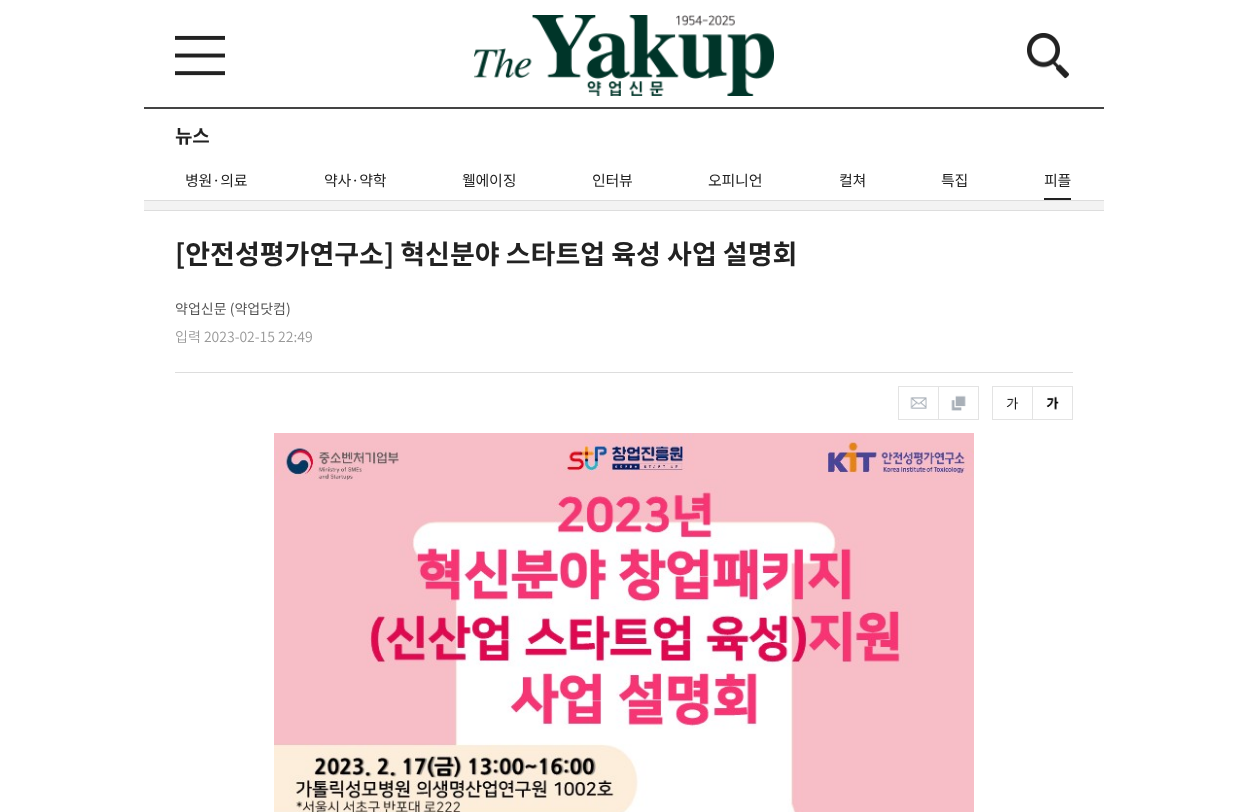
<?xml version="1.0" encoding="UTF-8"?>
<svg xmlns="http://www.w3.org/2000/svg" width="1248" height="812">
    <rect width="100%" height="100%" fill="#FFFFFF"/>
    <rect x="144" y="107" width="960" height="2" fill="#444444"/>
    <image x="175" y="35" width="50" height="41" href="img_01.png"/>
    <image x="474" y="15" width="300" height="81" href="img_02.png"/>
    <image x="1027" y="33" width="42" height="46" href="img_03.png"/>
    <rect x="144" y="201" width="960" height="9" fill="#F3F3F3"/>
    <rect x="144" y="200" width="960" height="1" fill="#DDDDDD"/>
    <text x="175" y="143" font-family="Noto Sans KR" font-size="19" font-weight="700" letter-spacing="-0.25" fill="#222222">뉴스</text>
    <text x="185" y="186" font-family="Noto Sans KR" font-size="15" letter-spacing="-0.25" fill="#222222">병원·의료</text>
    <text x="324" y="186" font-family="Noto Sans KR" font-size="15" letter-spacing="-0.25" fill="#222222">약사·약학</text>
    <text x="462" y="186" font-family="Noto Sans KR" font-size="15" letter-spacing="-0.25" fill="#222222">웰에이징</text>
    <text x="592" y="186" font-family="Noto Sans KR" font-size="15" letter-spacing="-0.25" fill="#222222">인터뷰</text>
    <text x="708" y="186" font-family="Noto Sans KR" font-size="15" letter-spacing="-0.25" fill="#222222">오피니언</text>
    <text x="839" y="186" font-family="Noto Sans KR" font-size="15" letter-spacing="-0.25" fill="#222222">컬쳐</text>
    <text x="941" y="186" font-family="Noto Sans KR" font-size="15" letter-spacing="-0.25" fill="#222222">특집</text>
    <text x="1044" y="186" font-family="Noto Sans KR" font-size="15" letter-spacing="-0.25" fill="#222222">피플</text>
    <rect x="1044" y="198" width="27" height="2" fill="#222222"/>
    <rect x="144" y="210" width="960" height="1" fill="#DDDDDD"/>
    <rect x="175" y="372" width="898" height="1" fill="#DDDDDD"/>
    <text x="175" y="264" font-family="Noto Sans KR" font-size="27" font-weight="700" fill="#222222">[안전성평가연구소] 혁신분야 스타트업 육성 사업 설명회</text>
    <text x="175" y="314" font-family="Noto Sans KR" font-size="14" fill="#555555">약업신문 (약업닷컴)</text>
    <text x="175" y="342" font-family="Noto Sans KR" font-size="14" font-weight="300" fill="#999999">입력 2023-02-15 22:49</text>
    <rect x="898.5" y="386.5" width="40" height="33" fill="none" stroke="#E3E3E3"/>
    <image x="910" y="397" width="17" height="12" href="img_04.png"/>
    <rect x="939" y="386" width="40" height="1" fill="#E3E3E3"/>
    <rect x="978" y="386" width="1" height="34" fill="#E3E3E3"/>
    <rect x="939" y="419" width="40" height="1" fill="#E3E3E3"/>
    <image x="951" y="395" width="15" height="16" href="img_05.png"/>
    <rect x="992.5" y="386.5" width="40" height="33" fill="none" stroke="#E3E3E3"/>
    <image x="1006" y="397" width="13" height="13" href="img_06.png"/>
    <rect x="1033" y="386" width="40" height="1" fill="#E3E3E3"/>
    <rect x="1072" y="386" width="1" height="34" fill="#E3E3E3"/>
    <rect x="1033" y="419" width="40" height="1" fill="#E3E3E3"/>
    <image x="1046" y="396" width="13" height="14" href="img_07.png"/>
    <image x="274" y="433" width="700" height="379" href="img_08.png"/>
</svg>
